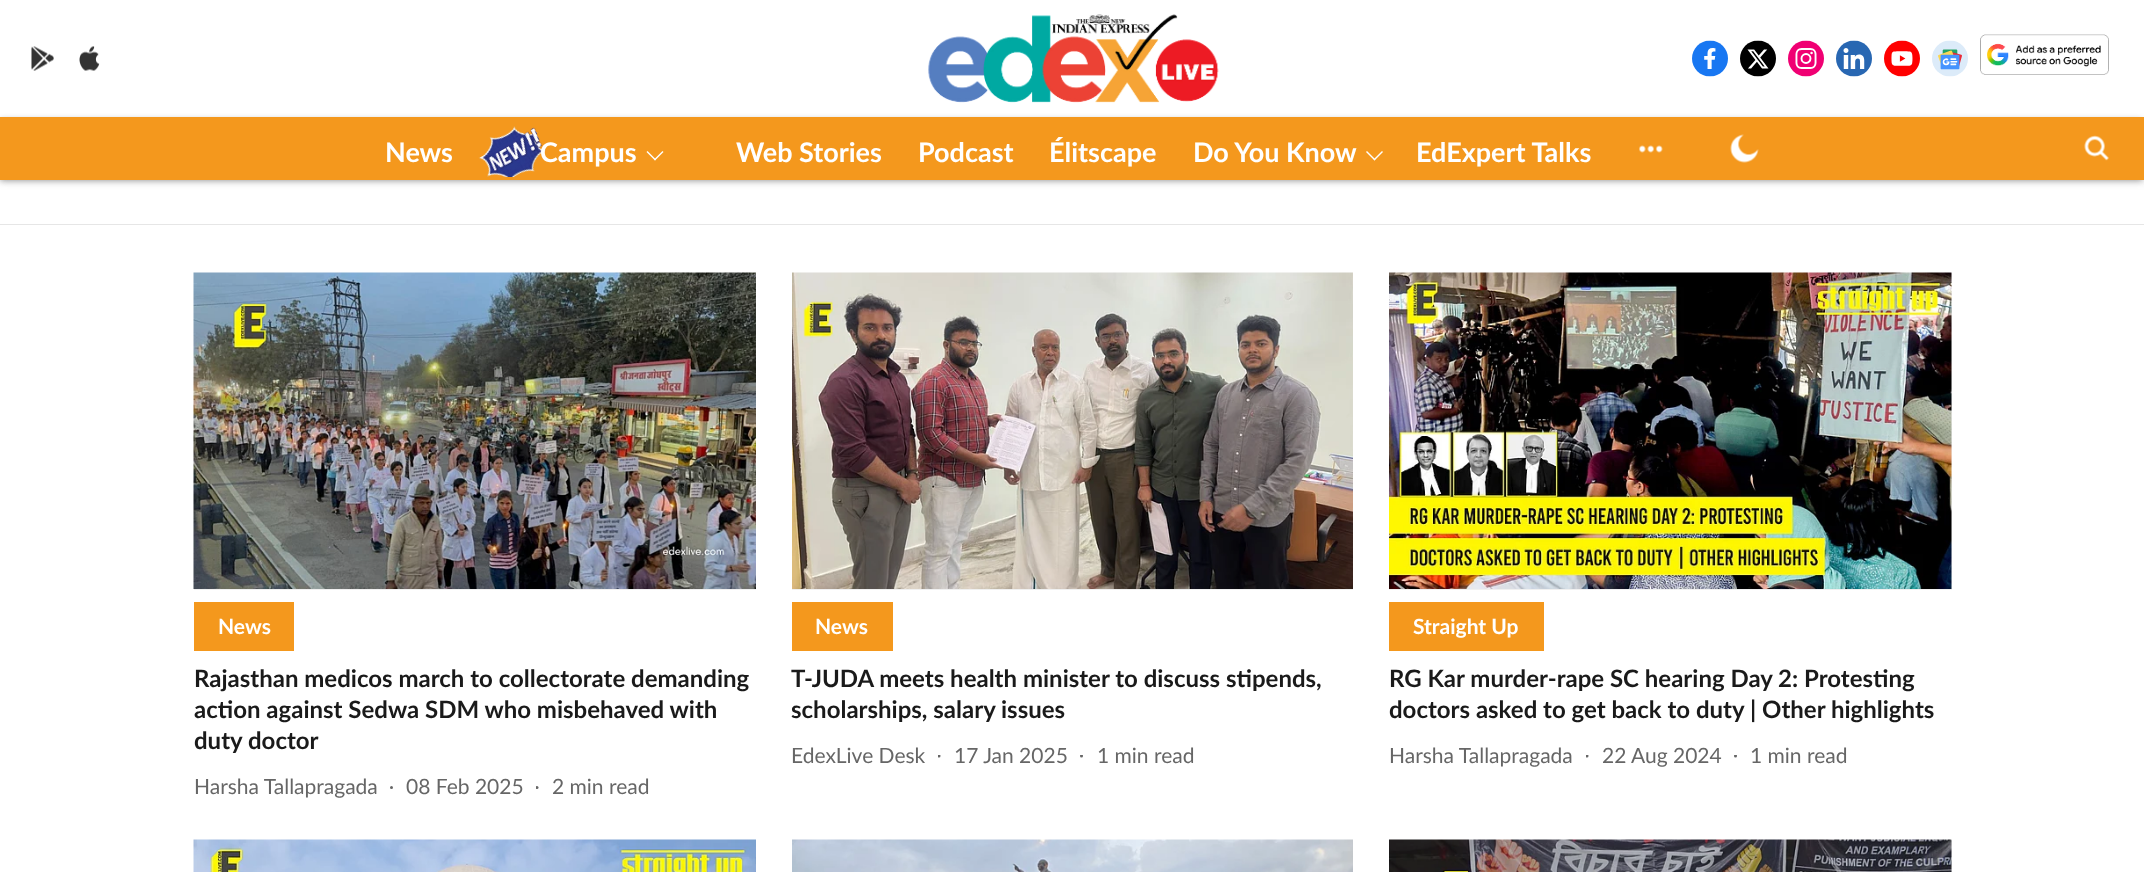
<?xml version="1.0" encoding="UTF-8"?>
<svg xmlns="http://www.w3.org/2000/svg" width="2144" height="872">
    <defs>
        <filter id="blur1" x="-50%" y="-200%" width="200%" height="500%"><feGaussianBlur stdDeviation="4.5"/></filter>
        <filter id="blur2" x="-50%" y="-200%" width="200%" height="500%"><feGaussianBlur stdDeviation="3"/></filter>
        <clipPath id="clip1"><rect x="536" y="786" width="5" height="5"/></clipPath>
        <clipPath id="clip2"><rect x="938" y="755" width="5" height="5"/></clipPath>
        <clipPath id="clip3"><rect x="1080" y="755" width="5" height="5"/></clipPath>
        <clipPath id="clip4"><rect x="1586" y="755" width="5" height="5"/></clipPath>
        <clipPath id="clip5"><rect x="1734" y="755" width="5" height="5"/></clipPath>
    </defs>
    <rect width="100%" height="100%" fill="#FFFFFF"/>
    <rect x="0" y="2" width="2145" height="180" fill="#000000" fill-opacity="0.1" filter="url(#blur1)"/>
    <rect x="0" y="0" width="2144" height="117" fill="#FFFFFF"/>
    <image x="31" y="46" width="23" height="25" href="img_01.png"/>
    <image x="79" y="46" width="21" height="25" href="img_02.png"/>
    <image x="928" y="14" width="291" height="89" href="img_03.png"/>
    <image x="1692" y="40" width="36" height="37" href="img_04.png"/>
    <image x="1740" y="40" width="36" height="37" href="img_05.png"/>
    <image x="1788" y="40" width="36" height="37" href="img_06.png"/>
    <image x="1836" y="40" width="36" height="37" href="img_07.png"/>
    <image x="1884" y="40" width="36" height="37" href="img_08.png"/>
    <image x="1932" y="40" width="36" height="37" href="img_09.png"/>
    <image x="1980" y="34" width="129" height="41" href="img_10.png"/>
    <rect x="0" y="120" width="2142" height="60" fill="#000000" fill-opacity="0.39" filter="url(#blur2)"/>
    <rect x="0" y="117" width="2144" height="63" fill="#F4981D"/>
    <text x="385" y="162" font-family="Lato" font-size="27" font-weight="700" fill="#FFFFFF">News</text>
    <image x="478" y="126" width="68" height="51" href="img_11.png"/>
    <text x="540" y="162" font-family="Lato" font-size="27" font-weight="700" fill="#FFFFFF">Campus</text>
    <path d="M 662.5 151 L 663.5 152 L 655 160.5 L 654 159.5 Z" fill="#FFFFFF"/>
    <path d="M 647.5 151 L 656 159.5 L 655 160.5 L 646.5 152 Z" fill="#FFFFFF"/>
    <text x="736" y="162" font-family="Lato" font-size="27" font-weight="700" fill="#FFFFFF">Web Stories</text>
    <text x="918" y="162" font-family="Lato" font-size="27" font-weight="700" fill="#FFFFFF">Podcast</text>
    <text x="1049" y="162" font-family="Lato" font-size="27" font-weight="700" fill="#FFFFFF">Élitscape</text>
    <text x="1193" y="162" font-family="Lato" font-size="27" font-weight="700" fill="#FFFFFF">Do You Know</text>
    <path d="M 1382 151 L 1383 152 L 1374.5 160.5 L 1373.5 159.5 Z" fill="#FFFFFF"/>
    <path d="M 1367 151 L 1375.5 159.5 L 1374.5 160.5 L 1366 152 Z" fill="#FFFFFF"/>
    <text x="1416" y="162" font-family="Lato" font-size="27" font-weight="700" fill="#FFFFFF">EdExpert Talks</text>
    <image x="1639" y="145" width="24" height="8" href="img_12.png"/>
    <image x="1730" y="134" width="29" height="29" href="img_13.png"/>
    <image x="2084" y="135" width="25" height="26" href="img_14.png"/>
    <rect x="0" y="224" width="2144" height="1" fill="#E6E6E6"/>
    <rect x="194" y="589" width="562" height="1" fill="#F0F0F0"/>
    <image x="193" y="272" width="563" height="317" href="img_15.png"/>
    <rect x="194" y="602" width="100" height="49" fill="#F4981D"/>
    <text x="218" y="634" font-family="Lato" font-size="21" font-weight="700" fill="#FFFFFF">News</text>
    <text font-family="Lato" font-size="24" font-weight="700" fill="#1A1A1A">
        <tspan x="194" y="687">Rajasthan medicos march to collectorate demanding</tspan>
        <tspan x="194" y="718">action against Sedwa SDM who misbehaved with</tspan>
        <tspan x="194" y="749">duty doctor</tspan>
    </text>
    <text x="194" y="794" font-family="Lato" font-size="21" fill="#666666">Harsha Tallapragada</text>
    <circle cx="391.5" cy="787.5" r="1.5" fill="#666666"/>
    <text x="406" y="794" font-family="Lato" font-size="21" fill="#666666">08 Feb 2025</text>
    <g clip-path="url(#clip1)">
        <circle cx="537" cy="787.5" r="1.5" fill="#666666"/>
    </g>
    <text x="552" y="794" font-family="Lato" font-size="21" fill="#666666">2 min read</text>
    <rect x="792" y="589" width="561" height="1" fill="#F0F0F0"/>
    <image x="792" y="272" width="561" height="317" href="img_16.png"/>
    <rect x="792" y="602" width="101" height="49" fill="#F4981D"/>
    <text x="815" y="634" font-family="Lato" font-size="21" font-weight="700" fill="#FFFFFF">News</text>
    <text font-family="Lato" font-size="24" font-weight="700" fill="#1A1A1A">
        <tspan x="791" y="687">T-JUDA meets health minister to discuss stipends,</tspan>
        <tspan x="791" y="718">scholarships, salary issues</tspan>
    </text>
    <text x="791" y="763" font-family="Lato" font-size="21" fill="#666666">EdexLive Desk</text>
    <g clip-path="url(#clip2)">
        <circle cx="939" cy="756" r="1.5" fill="#666666"/>
    </g>
    <text x="954" y="763" font-family="Lato" font-size="21" fill="#666666">17 Jan 2025</text>
    <g clip-path="url(#clip3)">
        <circle cx="1081.5" cy="756" r="1.5" fill="#666666"/>
    </g>
    <text x="1097" y="763" font-family="Lato" font-size="21" fill="#666666">1 min read</text>
    <rect x="1389" y="273" width="563" height="317" fill="#F0F0F0"/>
    <image x="1389" y="272" width="563" height="317" href="img_17.png"/>
    <rect x="1389" y="602" width="155" height="49" fill="#F4981D"/>
    <text x="1413" y="634" font-family="Lato" font-size="21" font-weight="700" fill="#FFFFFF">Straight Up</text>
    <text font-family="Lato" font-size="24" font-weight="700" fill="#1A1A1A">
        <tspan x="1389" y="687">RG Kar murder-rape SC hearing Day 2: Protesting</tspan>
        <tspan x="1389" y="718">doctors asked to get back to duty | Other highlights</tspan>
    </text>
    <text x="1389" y="763" font-family="Lato" font-size="21" fill="#666666">Harsha Tallapragada</text>
    <g clip-path="url(#clip4)">
        <circle cx="1587" cy="756" r="1.5" fill="#666666"/>
    </g>
    <text x="1602" y="763" font-family="Lato" font-size="21" fill="#666666">22 Aug 2024</text>
    <g clip-path="url(#clip5)">
        <circle cx="1735.5" cy="756" r="1.5" fill="#666666"/>
    </g>
    <text x="1750" y="763" font-family="Lato" font-size="21" fill="#666666">1 min read</text>
    <image x="193" y="839" width="563" height="33" href="img_18.png"/>
    <image x="792" y="839" width="561" height="33" href="img_19.png"/>
    <rect x="1951" y="840" width="1" height="32" fill="#F0F0F0"/>
    <image x="1389" y="839" width="563" height="33" href="img_20.png"/>
</svg>
